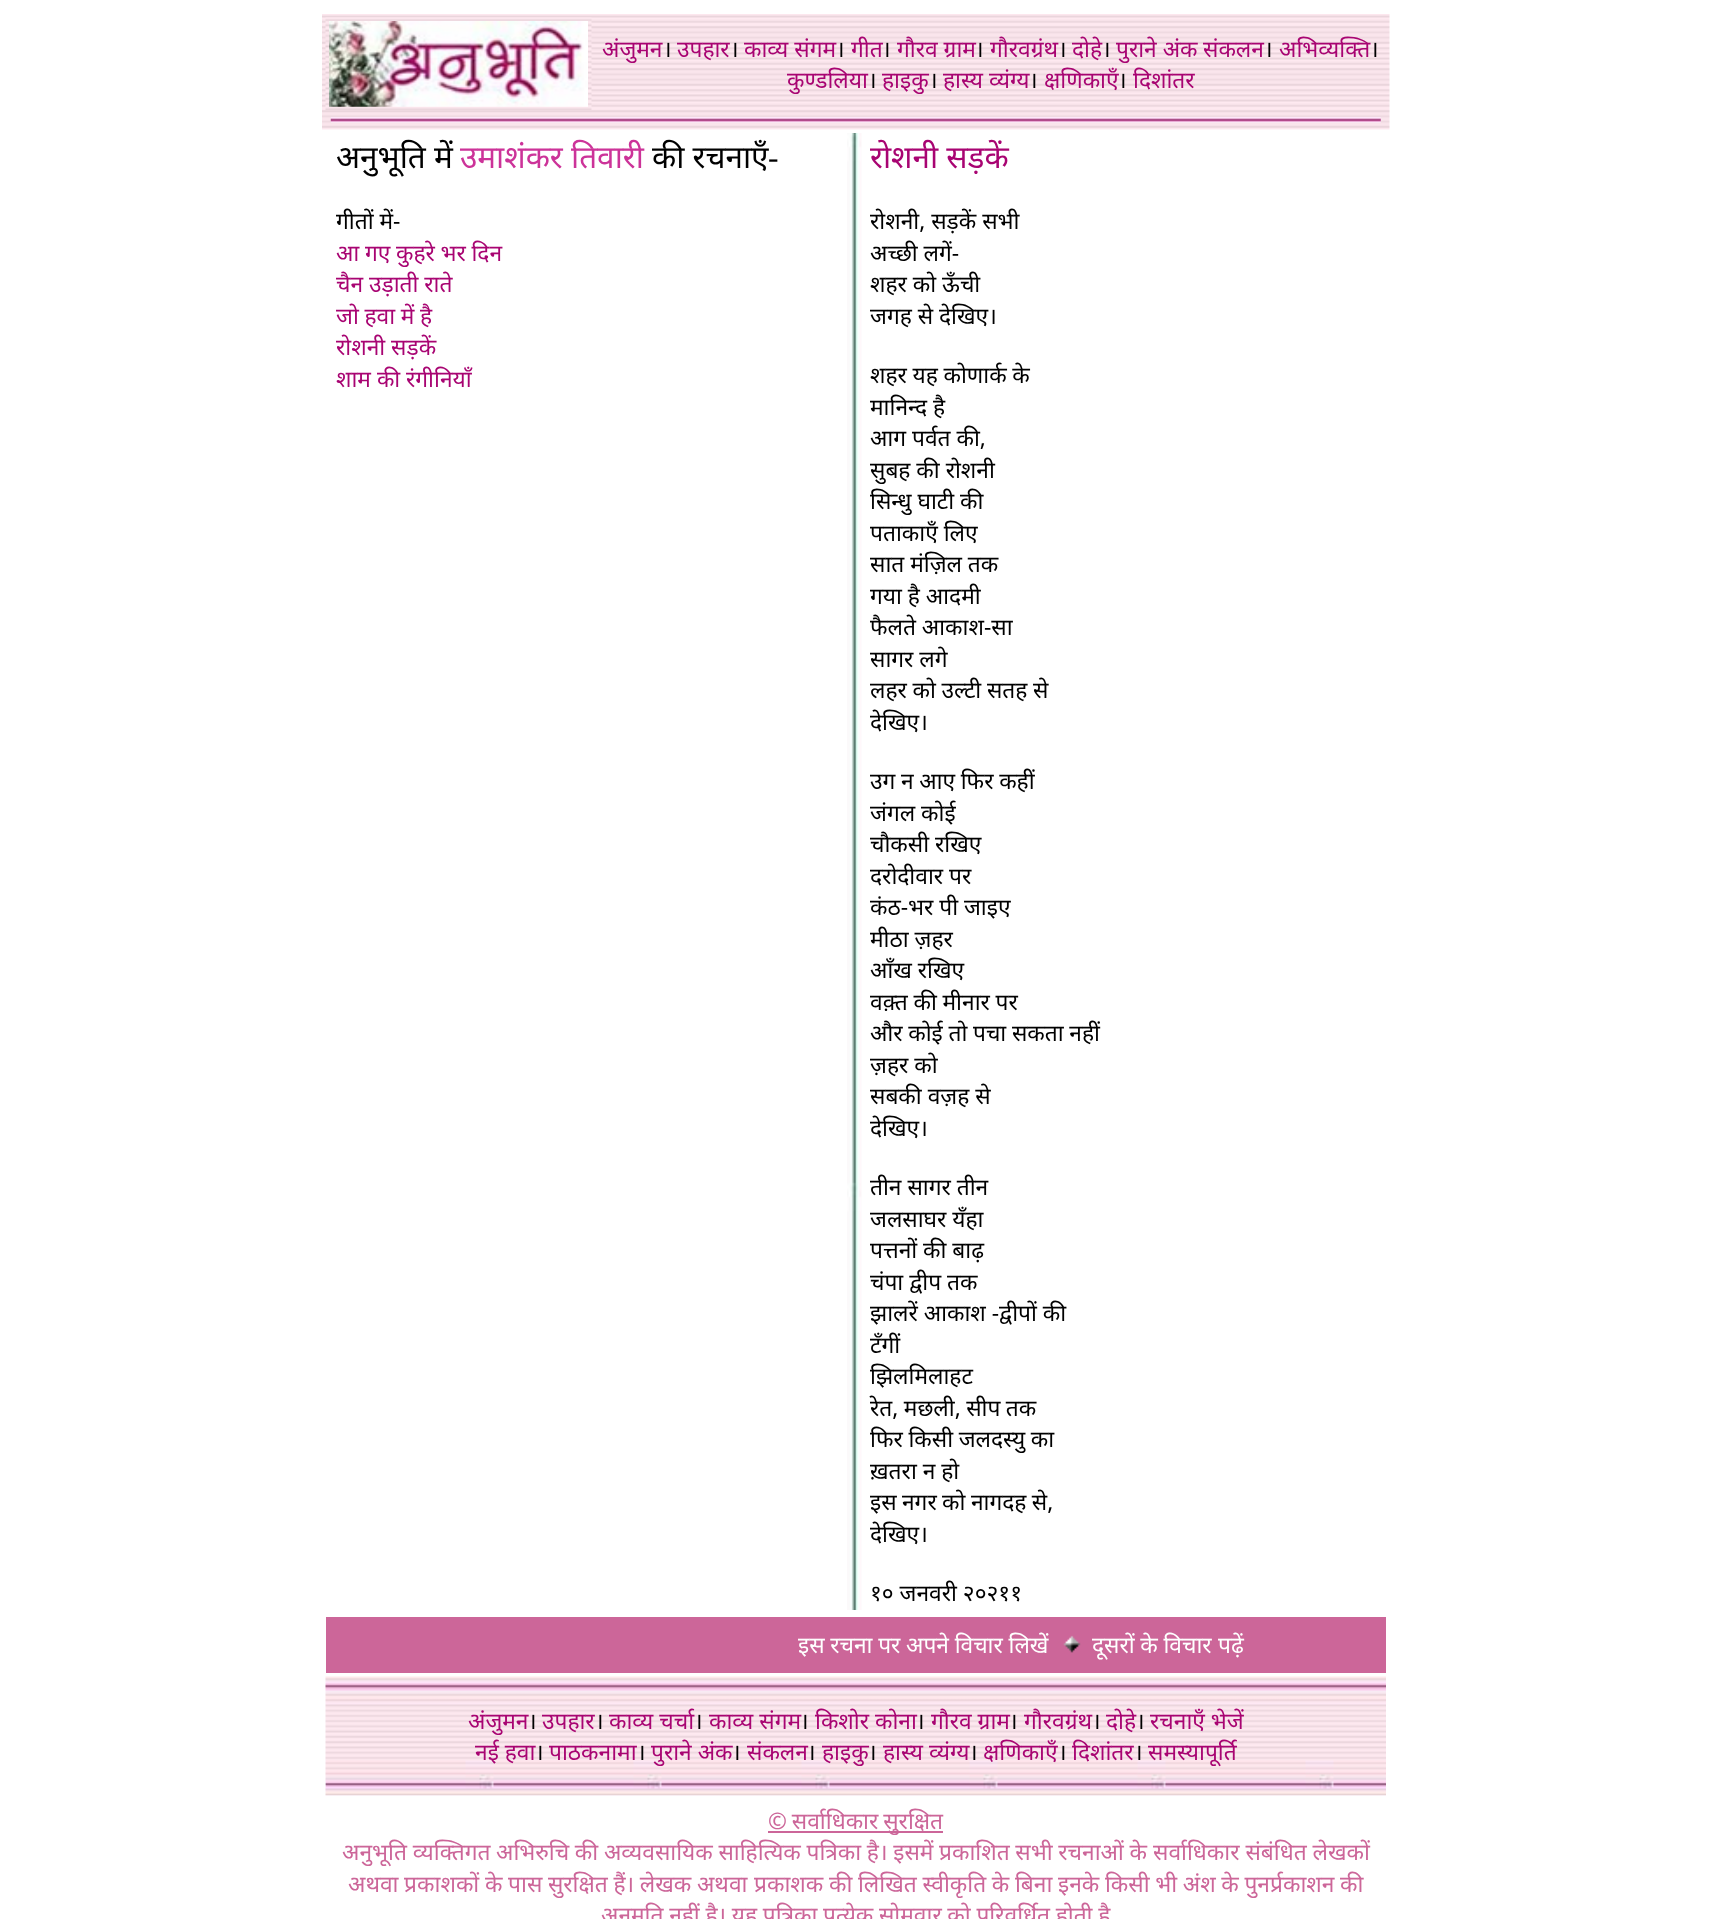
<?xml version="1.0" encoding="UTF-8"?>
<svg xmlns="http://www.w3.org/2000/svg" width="1711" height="1919">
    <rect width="100%" height="100%" fill="#FFFFFF"/>
    <image x="322" y="14" width="1068" height="116" href="img_01.png"/>
    <image x="325" y="17" width="267" height="93" href="img_02.png"/>
    <image x="329" y="21" width="259" height="86" href="img_03.png"/>
    <text x="602" y="57" font-family="Noto Sans" font-size="22.75" fill="#A80472">अंजुमन</text>
    <text x="663" y="57" font-family="Noto Sans" font-size="22.75" fill="#000000">।</text>
    <text x="677" y="57" font-family="Noto Sans" font-size="22.75" fill="#A80472">उपहार</text>
    <text x="730" y="57" font-family="Noto Sans" font-size="22.75" fill="#000000">।</text>
    <text x="744" y="57" font-family="Noto Sans" font-size="22.75" fill="#A80472">काव्य संगम</text>
    <text x="836" y="57" font-family="Noto Sans" font-size="22.75" fill="#000000">।</text>
    <text x="851" y="57" font-family="Noto Sans" font-size="22.75" fill="#A80472">गीत</text>
    <text x="882" y="57" font-family="Noto Sans" font-size="22.75" fill="#000000">।</text>
    <text x="897" y="57" font-family="Noto Sans" font-size="22.75" fill="#A80472">गौरव ग्राम</text>
    <text x="975" y="57" font-family="Noto Sans" font-size="22.75" fill="#000000">।</text>
    <text x="990" y="57" font-family="Noto Sans" font-size="22.75" fill="#A80472">गौरवग्रंथ</text>
    <text x="1058" y="57" font-family="Noto Sans" font-size="22.75" fill="#000000">।</text>
    <text x="1072" y="57" font-family="Noto Sans" font-size="22.75" fill="#A80472">दोहे</text>
    <text x="1102" y="57" font-family="Noto Sans" font-size="22.75" fill="#000000">।</text>
    <text x="1116" y="57" font-family="Noto Sans" font-size="22.75" fill="#A80472">पुराने अंक</text>
    <text x="1203" y="57" font-family="Noto Sans" font-size="22.75" fill="#A80472">संकलन</text>
    <text x="1279" y="57" font-family="Noto Sans" font-size="22.75" fill="#A80472">अभिव्यक्ति</text>
    <text x="1264" y="57" font-family="Noto Sans" font-size="22.75" fill="#000000">।</text>
    <text x="1370" y="57" font-family="Noto Sans" font-size="22.75" fill="#000000">।</text>
    <text x="787" y="88" font-family="Noto Sans" font-size="22.75" fill="#A80472">कुण्डलिया</text>
    <text x="868" y="88" font-family="Noto Sans" font-size="22.75" fill="#000000">।</text>
    <text x="882" y="88" font-family="Noto Sans" font-size="22.75" fill="#A80472">हाइकु</text>
    <text x="929" y="88" font-family="Noto Sans" font-size="22.75" fill="#000000">।</text>
    <text x="943" y="88" font-family="Noto Sans" font-size="22.75" fill="#A80472">हास्य व्यंग्य</text>
    <text x="1029" y="88" font-family="Noto Sans" font-size="22.75" fill="#000000">।</text>
    <text x="1044" y="88" font-family="Noto Sans" font-size="22.75" fill="#A80472">क्षणिकाएँ</text>
    <text x="1118" y="88" font-family="Noto Sans" font-size="22.75" fill="#000000">।</text>
    <text x="1133" y="88" font-family="Noto Sans" font-size="22.75" fill="#A80472">दिशांतर</text>
    <image x="330" y="117" width="1051" height="6" href="img_04.png"/>
    <text x="336" y="168" font-family="Noto Sans" font-size="31.5" fill="#000000">अनुभूति में</text>
    <text x="460" y="168" font-family="Noto Sans" font-size="31.5" fill="#CC3399">उमाशंकर</text>
    <text x="571" y="168" font-family="Noto Sans" font-size="31.5" fill="#CC3399">तिवारी</text>
    <text x="652" y="168" font-family="Noto Sans" font-size="31.5" fill="#000000">की रचनाएँ</text>
    <text x="768" y="168" font-family="Liberation Serif" font-size="31.5" fill="#000000">-</text>
    <text x="336" y="229" font-family="Noto Sans" font-size="22.75" fill="#000000">गीतों में-</text>
    <text font-family="Noto Sans" font-size="22.75" fill="#A80472">
        <tspan x="336" y="261" word-spacing="-0.25">आ गए कुहरे भर दिन</tspan>
        <tspan x="336" y="292">चैन उड़ाती राते</tspan>
        <tspan x="336" y="324" word-spacing="-0.25">जो हवा में है</tspan>
        <tspan x="336" y="355">रोशनी सड़कें</tspan>
        <tspan x="336" y="387">शाम की</tspan>
    </text>
    <text x="406" y="387" font-family="Noto Sans" font-size="22.75" fill="#A80472">रंगीनियाँ</text>
    <image x="847" y="133" width="15" height="1477" href="img_05.png"/>
    <text x="870" y="168" font-family="Noto Sans" font-size="31.5" fill="#A80472">रोशनी सड़कें</text>
    <text font-family="Noto Sans" font-size="22.75" fill="#000000">
        <tspan x="870" y="229">रोशनी, सड़कें सभी</tspan>
        <tspan x="870" y="261">अच्छी लगें-</tspan>
        <tspan x="870" y="292">शहर को ऊँची</tspan>
        <tspan x="870" y="324">जगह से देखिए।</tspan>
    </text>
    <text font-family="Noto Sans" font-size="22.75" fill="#000000">
        <tspan x="870" y="383" word-spacing="-0.25">शहर यह कोणार्क के</tspan>
        <tspan x="870" y="415">मानिन्द है</tspan>
        <tspan x="870" y="446">आग पर्वत की,</tspan>
        <tspan x="870" y="478">सुबह की रोशनी</tspan>
        <tspan x="870" y="509">सिन्धु घाटी की</tspan>
        <tspan x="870" y="541">पताकाएँ लिए</tspan>
        <tspan x="870" y="572">सात मंज़िल तक</tspan>
        <tspan x="870" y="604">गया है आदमी</tspan>
        <tspan x="870" y="635">फैलते आकाश-सा</tspan>
        <tspan x="870" y="667">सागर लगे</tspan>
        <tspan x="870" y="698" word-spacing="-0.25">लहर को उल्टी सतह से</tspan>
        <tspan x="870" y="730">देखिए।</tspan>
    </text>
    <text font-family="Noto Sans" font-size="22.75" fill="#000000">
        <tspan x="870" y="789" word-spacing="-0.25">उग न आए फिर कहीं</tspan>
        <tspan x="870" y="821">जंगल कोई</tspan>
        <tspan x="870" y="852">चौकसी रखिए</tspan>
        <tspan x="870" y="884">दरोदीवार पर</tspan>
        <tspan x="870" y="915">कंठ-भर पी जाइए</tspan>
        <tspan x="870" y="947">मीठा ज़हर</tspan>
        <tspan x="870" y="978">आँख रखिए</tspan>
        <tspan x="870" y="1010" word-spacing="-0.25">वक़्त की मीनार पर</tspan>
        <tspan x="870" y="1041" word-spacing="-0.25">और कोई तो पचा सकता नहीं</tspan>
        <tspan x="870" y="1073">ज़हर को</tspan>
        <tspan x="870" y="1104">सबकी वज़ह से</tspan>
        <tspan x="870" y="1136">देखिए।</tspan>
    </text>
    <text font-family="Noto Sans" font-size="22.75" fill="#000000">
        <tspan x="870" y="1195">तीन सागर तीन</tspan>
        <tspan x="870" y="1227">जलसाघर यँहा</tspan>
        <tspan x="870" y="1258">पत्तनों की बाढ़</tspan>
        <tspan x="870" y="1290">चंपा द्वीप तक</tspan>
        <tspan x="870" y="1321">झालरें आकाश -द्वीपों की</tspan>
        <tspan x="870" y="1353">टँगीं</tspan>
        <tspan x="870" y="1384">झिलमिलाहट</tspan>
        <tspan x="870" y="1416" word-spacing="-0.5">रेत, मछली, सीप तक</tspan>
        <tspan x="870" y="1447" word-spacing="-0.25">फिर किसी जलदस्यु का</tspan>
        <tspan x="870" y="1479">ख़तरा न हो</tspan>
        <tspan x="870" y="1510" word-spacing="-0.5">इस नगर को नागदह से,</tspan>
        <tspan x="870" y="1542">देखिए।</tspan>
    </text>
    <text x="870" y="1601" font-family="Noto Sans" font-size="22.75" fill="#000000">१० जनवरी २०२११</text>
    <rect x="326" y="1617" width="1060" height="56" fill="#CC6699"/>
    <text x="798" y="1653" word-spacing="-0.25" font-family="Noto Sans" font-size="22.75" fill="#FFFFFF">इस रचना पर अपने विचार लिखें</text>
    <image x="1063" y="1635" width="18" height="18" href="img_06.png"/>
    <text x="1092" y="1653" word-spacing="-0.25" font-family="Noto Sans" font-size="22.75" fill="#FFFFFF">दूसरों के विचार</text>
    <text x="1218" y="1653" font-family="Noto Sans" font-size="22.75" fill="#FFFFFF">पढ़ें</text>
    <image x="325" y="1676" width="1061" height="120" href="img_07.png"/>
    <text x="468" y="1729" font-family="Noto Sans" font-size="22.75" fill="#A80472">अंजुमन</text>
    <text x="528" y="1729" font-family="Noto Sans" font-size="22.75" fill="#000000">।</text>
    <text x="542" y="1729" font-family="Noto Sans" font-size="22.75" fill="#A80472">उपहार</text>
    <text x="595" y="1729" font-family="Noto Sans" font-size="22.75" fill="#000000">।</text>
    <text x="609" y="1729" font-family="Noto Sans" font-size="22.75" fill="#A80472">काव्य चर्चा</text>
    <text x="694" y="1729" font-family="Noto Sans" font-size="22.75" fill="#000000">।</text>
    <text x="709" y="1729" font-family="Noto Sans" font-size="22.75" fill="#A80472">काव्य संगम</text>
    <text x="800" y="1729" font-family="Noto Sans" font-size="22.75" fill="#000000">।</text>
    <text x="815" y="1729" font-family="Noto Sans" font-size="22.75" fill="#A80472">किशोर कोना</text>
    <text x="916" y="1729" font-family="Noto Sans" font-size="22.75" fill="#000000">।</text>
    <text x="931" y="1729" font-family="Noto Sans" font-size="22.75" fill="#A80472">गौरव ग्राम</text>
    <text x="1009" y="1729" font-family="Noto Sans" font-size="22.75" fill="#000000">।</text>
    <text x="1024" y="1729" font-family="Noto Sans" font-size="22.75" fill="#A80472">गौरवग्रंथ</text>
    <text x="1092" y="1729" font-family="Noto Sans" font-size="22.75" fill="#000000">।</text>
    <text x="1106" y="1729" font-family="Noto Sans" font-size="22.75" fill="#A80472">दोहे</text>
    <text x="1136" y="1729" font-family="Noto Sans" font-size="22.75" fill="#000000">।</text>
    <text x="1150" y="1729" font-family="Noto Sans" font-size="22.75" fill="#A80472">रचनाएँ भेजें</text>
    <text x="475" y="1760" font-family="Noto Sans" font-size="22.75" fill="#A80472">नई हवा</text>
    <text x="535" y="1760" font-family="Noto Sans" font-size="22.75" fill="#000000">।</text>
    <text x="549" y="1760" font-family="Noto Sans" font-size="22.75" fill="#A80472">पाठकनामा</text>
    <text x="637" y="1760" font-family="Noto Sans" font-size="22.75" fill="#000000">।</text>
    <text x="651" y="1760" font-family="Noto Sans" font-size="22.75" fill="#A80472">पुराने अंक</text>
    <text x="747" y="1760" font-family="Noto Sans" font-size="22.75" fill="#A80472">संकलन</text>
    <text x="883" y="1760" font-family="Noto Sans" font-size="22.75" fill="#A80472">हास्य व्यंग्य</text>
    <text x="983" y="1760" font-family="Noto Sans" font-size="22.75" fill="#A80472">क्षणिकाएँ</text>
    <text x="1072" y="1760" font-family="Noto Sans" font-size="22.75" fill="#A80472">दिशांतर</text>
    <text x="1148" y="1760" font-family="Noto Sans" font-size="22.75" fill="#A80472">समस्यापूर्ति</text>
    <text x="732" y="1760" font-family="Noto Sans" font-size="22.75" fill="#000000">।</text>
    <text x="807" y="1760" font-family="Noto Sans" font-size="22.75" fill="#000000">।</text>
    <text x="822" y="1760" font-family="Noto Sans" font-size="22.75" fill="#A80472">हाइकु</text>
    <text x="868" y="1760" font-family="Noto Sans" font-size="22.75" fill="#000000">।</text>
    <text x="969" y="1760" font-family="Noto Sans" font-size="22.75" fill="#000000">।</text>
    <text x="1058" y="1760" font-family="Noto Sans" font-size="22.75" fill="#000000">।</text>
    <text x="1134" y="1760" font-family="Noto Sans" font-size="22.75" fill="#000000">।</text>
    <rect x="768" y="1831" width="175" height="2" fill="#CC6699"/>
    <text x="768" y="1829" word-spacing="-1" font-family="Noto Sans" font-size="22.75" fill="#CC6699">© सर्वाधिकार सुरक्षित</text>
    <text x="342" y="1860" font-family="Noto Sans" font-size="22.75" fill="#CC6699">अनुभूति व्यक्तिगत</text>
    <text x="496" y="1860" word-spacing="-0.25" font-family="Noto Sans" font-size="22.75" fill="#CC6699">अभिरुचि की अव्यवसायिक साहित्यिक पत्रिका है। इसमें प्रकाशित सभी रचनाओं के</text>
    <text x="1153" y="1860" font-family="Noto Sans" font-size="22.75" fill="#CC6699">सर्वाधिकार संबंधित लेखकों</text>
    <text x="348" y="1892" word-spacing="-0.25" font-family="Noto Sans" font-size="22.75" fill="#CC6699">अथवा प्रकाशकों के पास सुरक्षित हैं। लेखक अथवा</text>
    <text x="754" y="1892" word-spacing="-0.25" font-family="Noto Sans" font-size="22.75" fill="#CC6699">प्रकाशक की लिखित स्वीकृति के बिना इनके किसी भी अंश के पुनर्प्रकाशन की</text>
    <text x="601" y="1923" word-spacing="-0.25" font-family="Noto Sans" font-size="22.75" fill="#CC6699">अनुमति नहीं है। यह पत्रिका प्रत्येक सोमवार को परिवर्धित होती है</text>
</svg>
